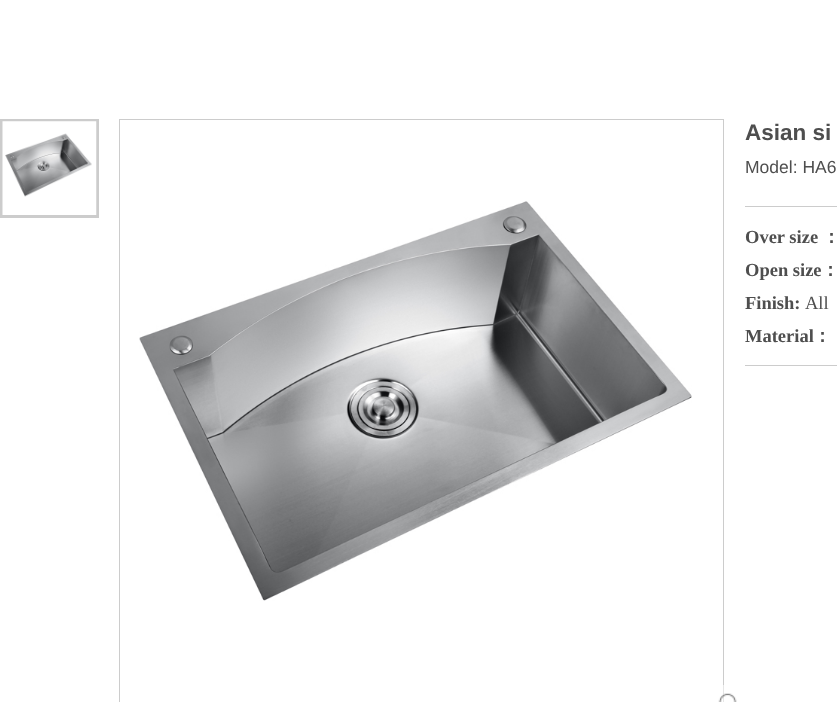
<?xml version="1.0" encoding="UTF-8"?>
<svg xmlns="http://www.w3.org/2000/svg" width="837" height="702">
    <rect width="100%" height="100%" fill="#FFFFFF"/>
    <rect x="1.5" y="120.5" width="96" height="96" fill="none" stroke="#CCCCCC" stroke-width="3"/>
    <image x="2" y="121" width="95" height="94" href="img_01.png"/>
    <rect x="119.5" y="119.5" width="604" height="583" fill="none" stroke="#CCCCCC"/>
    <image x="139" y="201" width="553" height="400" href="img_02.png"/>
    <image x="718" y="685" width="19" height="17" href="img_03.png"/>
    <text x="745" y="140" font-family="Liberation Sans" font-size="22.5" font-weight="700" fill="#4E4E4E">Asian si</text>
    <text x="745" y="173" font-family="Liberation Sans" font-size="17.5" fill="#4E4E4E">Model: HA6</text>
    <rect x="745" y="206" width="92" height="1" fill="#CCCCCC"/>
    <rect x="745" y="365" width="92" height="1" fill="#CCCCCC"/>
    <text x="745" y="243" font-family="Liberation Serif" font-size="18.5" font-weight="700" fill="#4E4E4E">Over size</text>
    <text x="822" y="243" font-family="WenQuanYi Zen Hei" font-size="18.5" font-weight="700" fill="#4E4E4E">：</text>
    <text x="745" y="276" font-family="Liberation Serif" font-size="18.5" font-weight="700" fill="#4E4E4E">Open size</text>
    <text x="821" y="276" font-family="WenQuanYi Zen Hei" font-size="18.5" font-weight="700" fill="#4E4E4E">：</text>
    <text x="745" y="309" font-family="Liberation Serif" font-size="18.5" font-weight="700" fill="#4E4E4E">Finish:</text>
    <text x="805" y="309" font-family="Liberation Serif" font-size="18.5" fill="#4E4E4E">All</text>
    <text x="745" y="342" font-family="Liberation Serif" font-size="18.5" font-weight="700" fill="#4E4E4E">Material</text>
    <text x="813" y="342" font-family="WenQuanYi Zen Hei" font-size="18.5" font-weight="700" fill="#4E4E4E">：</text>
</svg>
